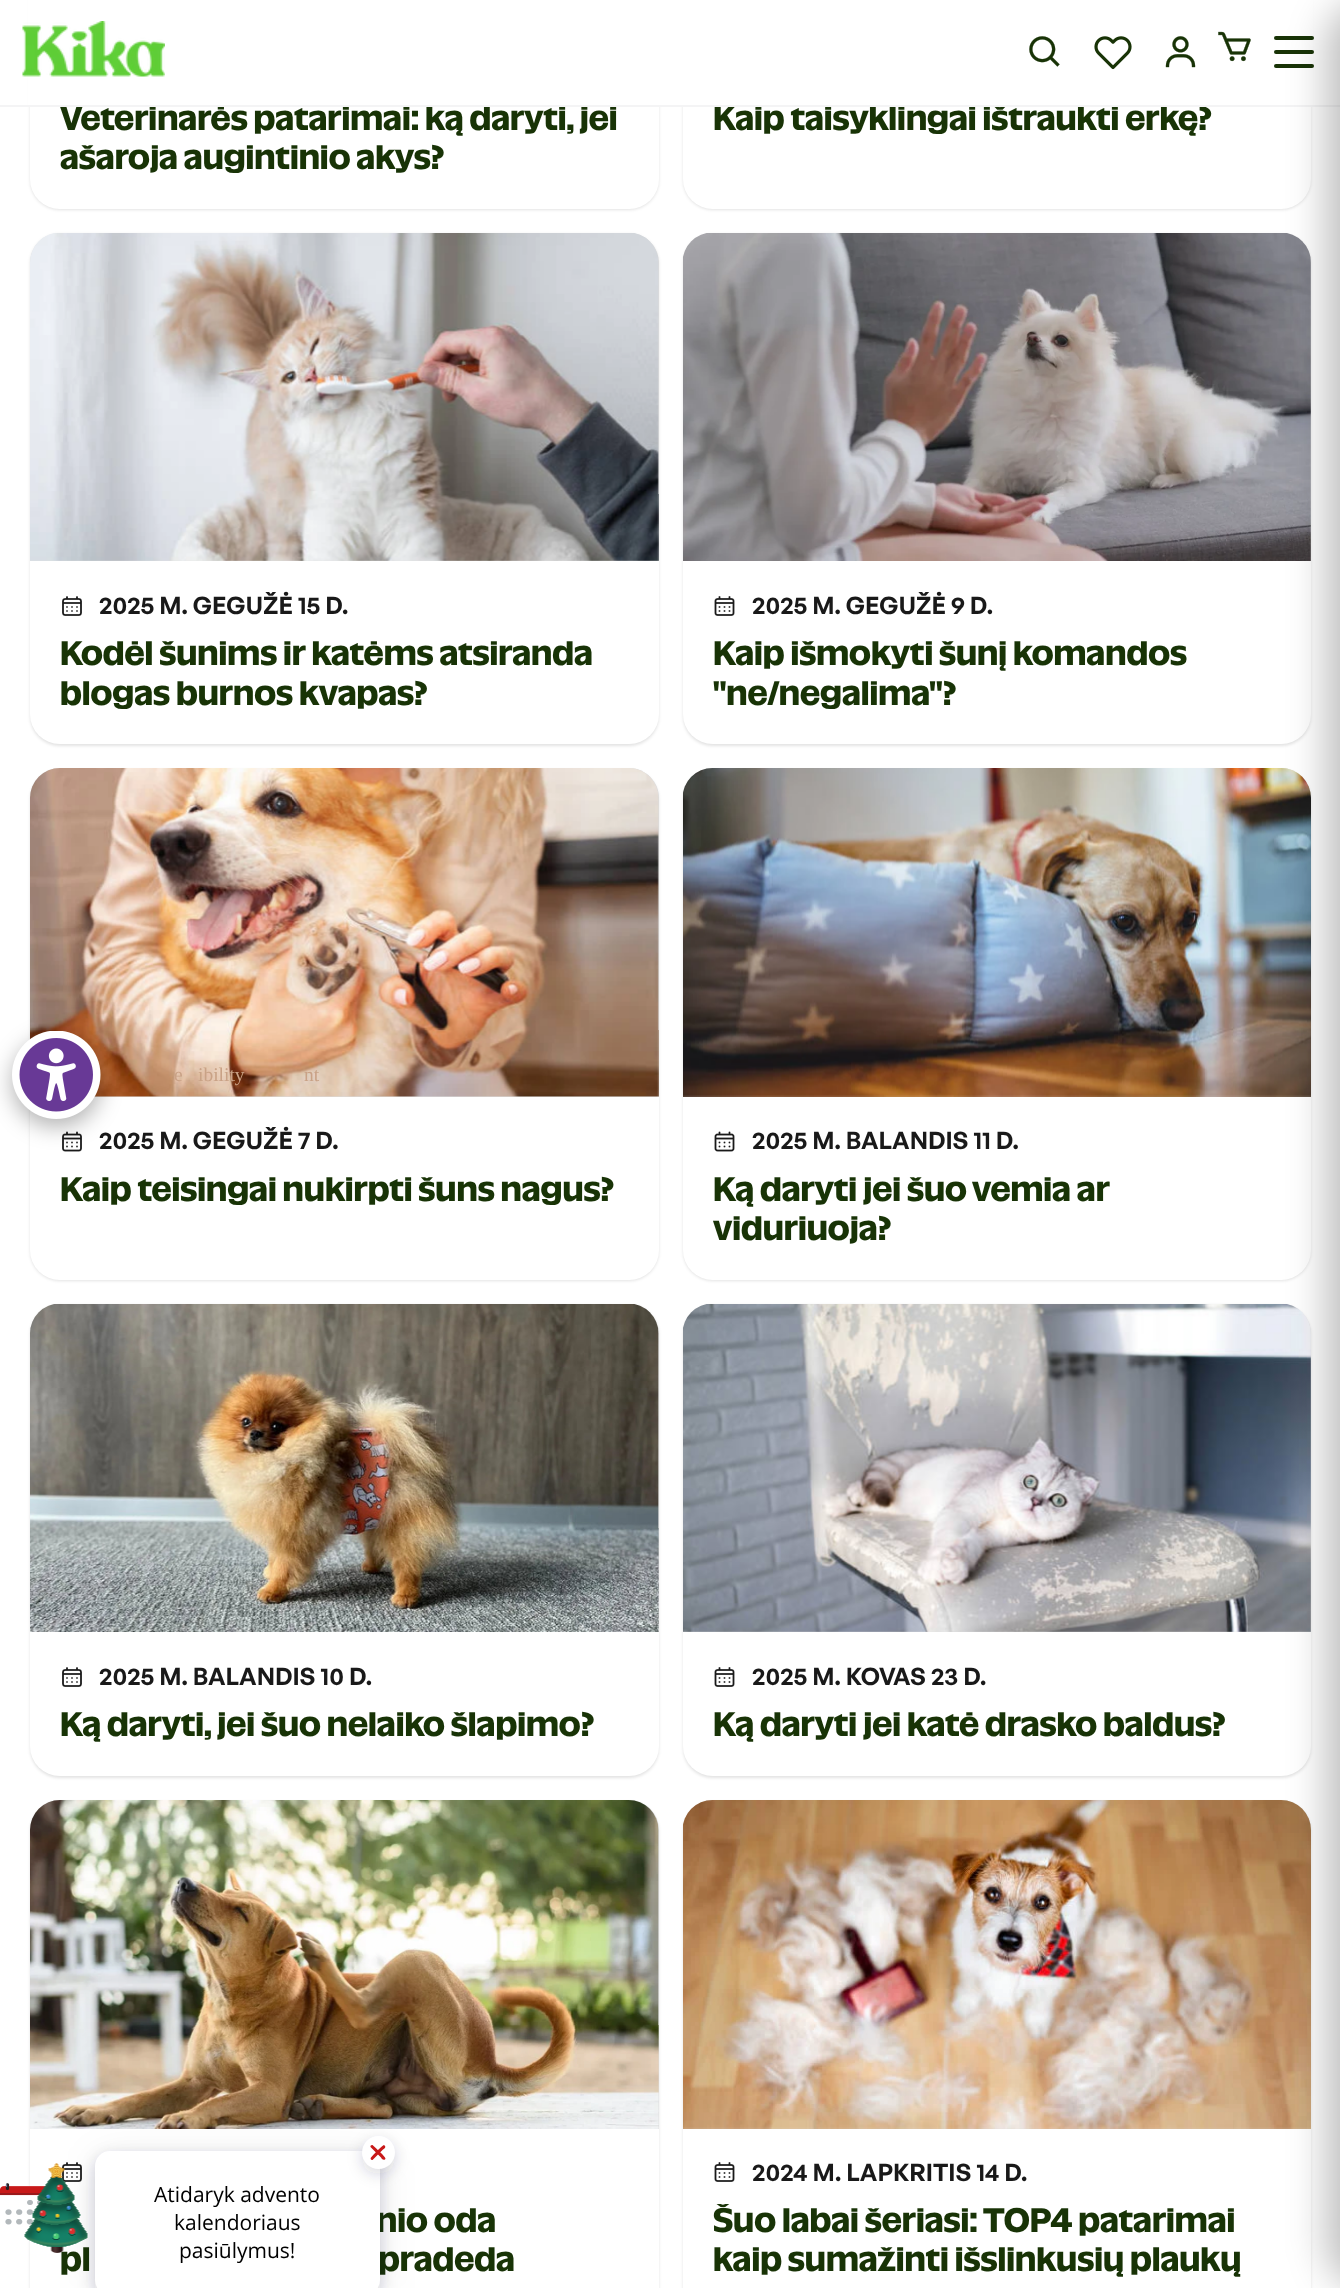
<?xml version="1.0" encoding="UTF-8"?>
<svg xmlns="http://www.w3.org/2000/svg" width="1340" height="2288">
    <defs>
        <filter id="blur1" x="-50%" y="-200%" width="200%" height="500%"><feGaussianBlur stdDeviation="1.5"/></filter>
        <filter id="blur2" x="-50%" y="-200%" width="200%" height="500%"><feGaussianBlur stdDeviation="19"/></filter>
        <filter id="blur3" x="-50%" y="-200%" width="200%" height="500%"><feGaussianBlur stdDeviation="7.5"/></filter>
        <filter id="blur4" x="-50%" y="-200%" width="200%" height="500%"><feGaussianBlur stdDeviation="11"/></filter>
    </defs>
    <rect width="100%" height="100%" fill="#FFFFFF"/>
    <rect x="30" y="-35" width="629" height="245" rx="30" fill="#000000" fill-opacity="0.11" filter="url(#blur1)"/>
    <rect x="30" y="-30" width="629" height="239" rx="30" fill="#FFFFFF"/>
    <rect x="683" y="-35" width="628" height="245" rx="30" fill="#000000" fill-opacity="0.11" filter="url(#blur1)"/>
    <rect x="683" y="-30" width="628" height="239" rx="30" fill="#FFFFFF"/>
    <rect x="28" y="0" width="1285" height="105" fill="#FFFFFF"/>
    <text x="60" y="130" font-family="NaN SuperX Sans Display" font-size="33" font-weight="700" fill="#183306">Veterinarės patarimai: ką daryti, jei</text>
    <text x="713" y="130" font-family="NaN SuperX Sans Display" font-size="33" font-weight="700" fill="#183306">Kaip taisyklingai ištraukti erkę?</text>
    <rect x="0" y="105" width="1340" height="2" fill="#F4F4F5"/>
    <image x="22" y="21" width="143" height="56" href="img_01.png"/>
    <image x="1029" y="36" width="31" height="31" href="img_02.png"/>
    <image x="1094" y="36" width="38" height="34" href="img_03.png"/>
    <image x="1165" y="36" width="31" height="32" href="img_04.png"/>
    <image x="1218" y="31" width="33" height="31" href="img_05.png"/>
    <rect x="1274" y="36" width="40" height="4" rx="2" fill="#183306"/>
    <rect x="1274" y="50" width="40" height="4" rx="2" fill="#183306"/>
    <rect x="1274" y="64" width="40" height="4" rx="2" fill="#183306"/>
    <text x="60" y="169" font-family="NaN SuperX Sans Display" font-size="33" font-weight="700" fill="#183306">ašaroja augintinio akys?</text>
    <rect x="30" y="234" width="629" height="512" rx="30" fill="#000000" fill-opacity="0.11" filter="url(#blur1)"/>
    <rect x="30" y="233" width="629" height="511" rx="30" fill="#FFFFFF"/>
    <path d="M 60 233 H 629 C 645.5 233 659 246.5 659 263 V 561 H 30 V 263 C 30 246.5 43.5 233 60 233 Z" fill="#F3F3F3"/>
    <path d="M 60 233 H 629 C 645.5 233 659 246.5 659 263 V 561 H 30 V 263 C 30 246.5 43.5 233 60 233 Z" fill="#121212" fill-opacity="0.1"/>
    <image x="30" y="233" width="629" height="328" href="img_06.png"/>
    <image x="62" y="596" width="20" height="20" href="img_07.png"/>
    <text x="99" y="614" font-family="General Sans" font-size="24" font-weight="600" fill="#191919">2025 M. GEGUŽĖ 15 D.</text>
    <text font-family="NaN SuperX Sans Display" font-size="33" font-weight="700" fill="#183306">
        <tspan x="60" y="665">Kodėl šunims ir katėms atsiranda</tspan>
        <tspan x="60" y="705">blogas burnos kvapas?</tspan>
    </text>
    <rect x="683" y="234" width="628" height="512" rx="30" fill="#000000" fill-opacity="0.11" filter="url(#blur1)"/>
    <rect x="683" y="233" width="628" height="511" rx="30" fill="#FFFFFF"/>
    <path d="M 713 233 H 1281 C 1297.5 233 1311 246.5 1311 263 V 561 H 683 V 263 C 683 246.5 696.5 233 713 233 Z" fill="#F3F3F3"/>
    <path d="M 713 233 H 1281 C 1297.5 233 1311 246.5 1311 263 V 561 H 683 V 263 C 683 246.5 696.5 233 713 233 Z" fill="#121212" fill-opacity="0.1"/>
    <image x="683" y="233" width="628" height="328" href="img_08.png"/>
    <image x="714" y="596" width="21" height="20" href="img_09.png"/>
    <text x="752" y="614" font-family="General Sans" font-size="24" font-weight="600" fill="#191919">2025 M. GEGUŽĖ 9 D.</text>
    <text font-family="NaN SuperX Sans Display" font-size="33" font-weight="700" fill="#183306">
        <tspan x="713" y="665">Kaip išmokyti šunį komandos</tspan>
        <tspan x="713" y="705">"ne/negalima"?</tspan>
    </text>
    <rect x="30" y="770" width="629" height="511" rx="30" fill="#000000" fill-opacity="0.11" filter="url(#blur1)"/>
    <rect x="30" y="768" width="629" height="512" rx="30" fill="#FFFFFF"/>
    <path d="M 60 768 H 629 C 645.5 768 659 781.5 659 798 V 1097 H 30 V 798 C 30 781.5 43.5 768 60 768 Z" fill="#F3F3F3"/>
    <path d="M 60 768 H 629 C 645.5 768 659 781.5 659 798 V 1097 H 30 V 798 C 30 781.5 43.5 768 60 768 Z" fill="#121212" fill-opacity="0.1"/>
    <image x="30" y="768" width="629" height="329" href="img_10.png"/>
    <image x="62" y="1131" width="20" height="21" href="img_11.png"/>
    <text x="99" y="1149" font-family="General Sans" font-size="24" font-weight="600" fill="#191919">2025 M. GEGUŽĖ 7 D.</text>
    <text x="60" y="1201" font-family="NaN SuperX Sans Display" font-size="33" font-weight="700" fill="#183306">Kaip teisingai nukirpti šuns nagus?</text>
    <rect x="683" y="770" width="628" height="511" rx="30" fill="#000000" fill-opacity="0.11" filter="url(#blur1)"/>
    <rect x="683" y="768" width="628" height="512" rx="30" fill="#FFFFFF"/>
    <path d="M 713 768 H 1281 C 1297.5 768 1311 781.5 1311 798 V 1097 H 683 V 798 C 683 781.5 696.5 768 713 768 Z" fill="#F3F3F3"/>
    <path d="M 713 768 H 1281 C 1297.5 768 1311 781.5 1311 798 V 1097 H 683 V 798 C 683 781.5 696.5 768 713 768 Z" fill="#121212" fill-opacity="0.1"/>
    <image x="683" y="768" width="628" height="329" href="img_12.png"/>
    <image x="714" y="1131" width="21" height="21" href="img_13.png"/>
    <text x="752" y="1149" font-family="General Sans" font-size="24" font-weight="600" fill="#191919">2025 M. BALANDIS 11 D.</text>
    <text font-family="NaN SuperX Sans Display" font-size="33" font-weight="700" fill="#183306">
        <tspan x="713" y="1201">Ką daryti jei šuo vemia ar</tspan>
        <tspan x="713" y="1240">viduriuoja?</tspan>
    </text>
    <rect x="30" y="1305" width="629" height="473" rx="30" fill="#000000" fill-opacity="0.11" filter="url(#blur1)"/>
    <rect x="30" y="1304" width="629" height="472" rx="30" fill="#FFFFFF"/>
    <path d="M 60 1304 H 629 C 645.5 1304 659 1317.5 659 1334 V 1632 H 30 V 1334 C 30 1317.5 43.5 1304 60 1304 Z" fill="#F3F3F3"/>
    <path d="M 60 1304 H 629 C 645.5 1304 659 1317.5 659 1334 V 1632 H 30 V 1334 C 30 1317.5 43.5 1304 60 1304 Z" fill="#121212" fill-opacity="0.1"/>
    <image x="30" y="1304" width="629" height="328" href="img_14.png"/>
    <image x="62" y="1667" width="20" height="20" href="img_07.png"/>
    <text x="99" y="1685" font-family="General Sans" font-size="24" font-weight="600" fill="#191919">2025 M. BALANDIS 10 D.</text>
    <text x="60" y="1736" font-family="NaN SuperX Sans Display" font-size="33" font-weight="700" fill="#183306">Ką daryti, jei šuo nelaiko šlapimo?</text>
    <rect x="683" y="1305" width="628" height="473" rx="30" fill="#000000" fill-opacity="0.11" filter="url(#blur1)"/>
    <rect x="683" y="1304" width="628" height="472" rx="30" fill="#FFFFFF"/>
    <path d="M 713 1304 H 1281 C 1297.5 1304 1311 1317.5 1311 1334 V 1632 H 683 V 1334 C 683 1317.5 696.5 1304 713 1304 Z" fill="#F3F3F3"/>
    <path d="M 713 1304 H 1281 C 1297.5 1304 1311 1317.5 1311 1334 V 1632 H 683 V 1334 C 683 1317.5 696.5 1304 713 1304 Z" fill="#121212" fill-opacity="0.1"/>
    <image x="683" y="1304" width="628" height="328" href="img_15.png"/>
    <image x="714" y="1667" width="21" height="20" href="img_09.png"/>
    <text x="752" y="1685" font-family="General Sans" font-size="24" font-weight="600" fill="#191919">2025 M. KOVAS 23 D.</text>
    <text x="713" y="1736" font-family="NaN SuperX Sans Display" font-size="33" font-weight="700" fill="#183306">Ką daryti jei katė drasko baldus?</text>
    <rect x="30" y="1802" width="629" height="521" rx="30" fill="#000000" fill-opacity="0.11" filter="url(#blur1)"/>
    <rect x="30" y="1800" width="629" height="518" rx="30" fill="#FFFFFF"/>
    <path d="M 60 1800 H 629 C 645.5 1800 659 1813.5 659 1830 V 2129 H 30 V 1830 C 30 1813.5 43.5 1800 60 1800 Z" fill="#F3F3F3"/>
    <path d="M 60 1800 H 629 C 645.5 1800 659 1813.5 659 1830 V 2129 H 30 V 1830 C 30 1813.5 43.5 1800 60 1800 Z" fill="#121212" fill-opacity="0.1"/>
    <image x="30" y="1800" width="629" height="329" href="img_16.png"/>
    <image x="62" y="2162" width="20" height="20" href="img_07.png"/>
    <text x="376" y="2232" font-family="NaN SuperX Sans Display" font-size="33" font-weight="700" fill="#183306">nio oda</text>
    <text x="60" y="2271" font-family="NaN SuperX Sans Display" font-size="33" font-weight="700" fill="#183306">pl</text>
    <text x="378" y="2271" font-family="NaN SuperX Sans Display" font-size="33" font-weight="700" fill="#183306">pradeda</text>
    <rect x="683" y="1802" width="628" height="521" rx="30" fill="#000000" fill-opacity="0.11" filter="url(#blur1)"/>
    <rect x="683" y="1800" width="628" height="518" rx="30" fill="#FFFFFF"/>
    <path d="M 713 1800 H 1281 C 1297.5 1800 1311 1813.5 1311 1830 V 2129 H 683 V 1830 C 683 1813.5 696.5 1800 713 1800 Z" fill="#F3F3F3"/>
    <path d="M 713 1800 H 1281 C 1297.5 1800 1311 1813.5 1311 1830 V 2129 H 683 V 1830 C 683 1813.5 696.5 1800 713 1800 Z" fill="#121212" fill-opacity="0.1"/>
    <image x="683" y="1800" width="628" height="329" href="img_17.png"/>
    <image x="714" y="2162" width="21" height="20" href="img_09.png"/>
    <text x="752" y="2181" font-family="General Sans" font-size="24" font-weight="600" fill="#191919">2024 M. LAPKRITIS 14 D.</text>
    <text font-family="NaN SuperX Sans Display" font-size="33" font-weight="700" fill="#183306">
        <tspan x="713" y="2232">Šuo labai šeriasi: TOP4 patarimai</tspan>
        <tspan x="713" y="2271">kaip sumažinti išslinkusių plaukų</tspan>
    </text>
    <rect x="1326" y="0" width="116" height="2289" rx="45" fill="#000000" fill-opacity="0.25" filter="url(#blur2)"/>
    <image x="0" y="2183" width="46" height="50" href="img_18.png"/>
    <image x="24" y="2163" width="64" height="90" href="img_19.png"/>
    <rect x="95" y="2157" width="285" height="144" rx="15" fill="#2D3046" fill-opacity="0.08" filter="url(#blur2)"/>
    <rect x="95" y="2156" width="285" height="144" rx="15" fill="#2D3046" fill-opacity="0.18" filter="url(#blur3)"/>
    <rect x="95" y="2151" width="285" height="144" rx="15" fill="#FFFFFF"/>
    <rect x="362" y="2141" width="33" height="33" rx="16.5" fill="#2D3046" fill-opacity="0.18" filter="url(#blur3)"/>
    <circle cx="378.5" cy="2152.5" r="16.5" fill="#FFFFFF"/>
    <path d="M 373 2145.5 C 375 2147 385.5 2157 385.5 2158.5 L 385 2159.5 C 383 2160.5 381.5 2158.5 381 2157.5 L 370.5 2147 C 370 2145.5 372 2144.5 373 2145.5 Z" fill="#C81919"/>
    <path d="M 371 2157.5 C 372.5 2155.5 382.5 2145 384 2145 L 385 2146 C 386 2147.5 384 2149 383 2149.5 L 372.5 2160 C 371 2160.5 370 2158.5 371 2157.5 Z" fill="#C81919"/>
    <text x="154" y="2202" font-family="Open Sans" font-size="21" fill="#000000">Atidaryk advento</text>
    <text x="174" y="2230" font-family="Open Sans" font-size="21" fill="#000000">kalendoriaus</text>
    <text x="179" y="2258" font-family="Open Sans" font-size="21" fill="#000000">pasiūlymus!</text>
    <rect x="12" y="1038" width="89" height="89" rx="44.5" fill="#000000" fill-opacity="0.3" filter="url(#blur4)"/>
    <image x="12" y="1031" width="89" height="88" href="img_20.png"/>
    <text x="174" y="1081" font-family="Liberation Serif" font-size="19.5" fill="#C9A286">e</text>
    <text x="198" y="1081" font-family="Liberation Serif" font-size="19.5" fill="#C9A286">ibility</text>
    <text x="304" y="1081" font-family="Liberation Serif" font-size="19.5" fill="#C9A286">nt</text>
</svg>
